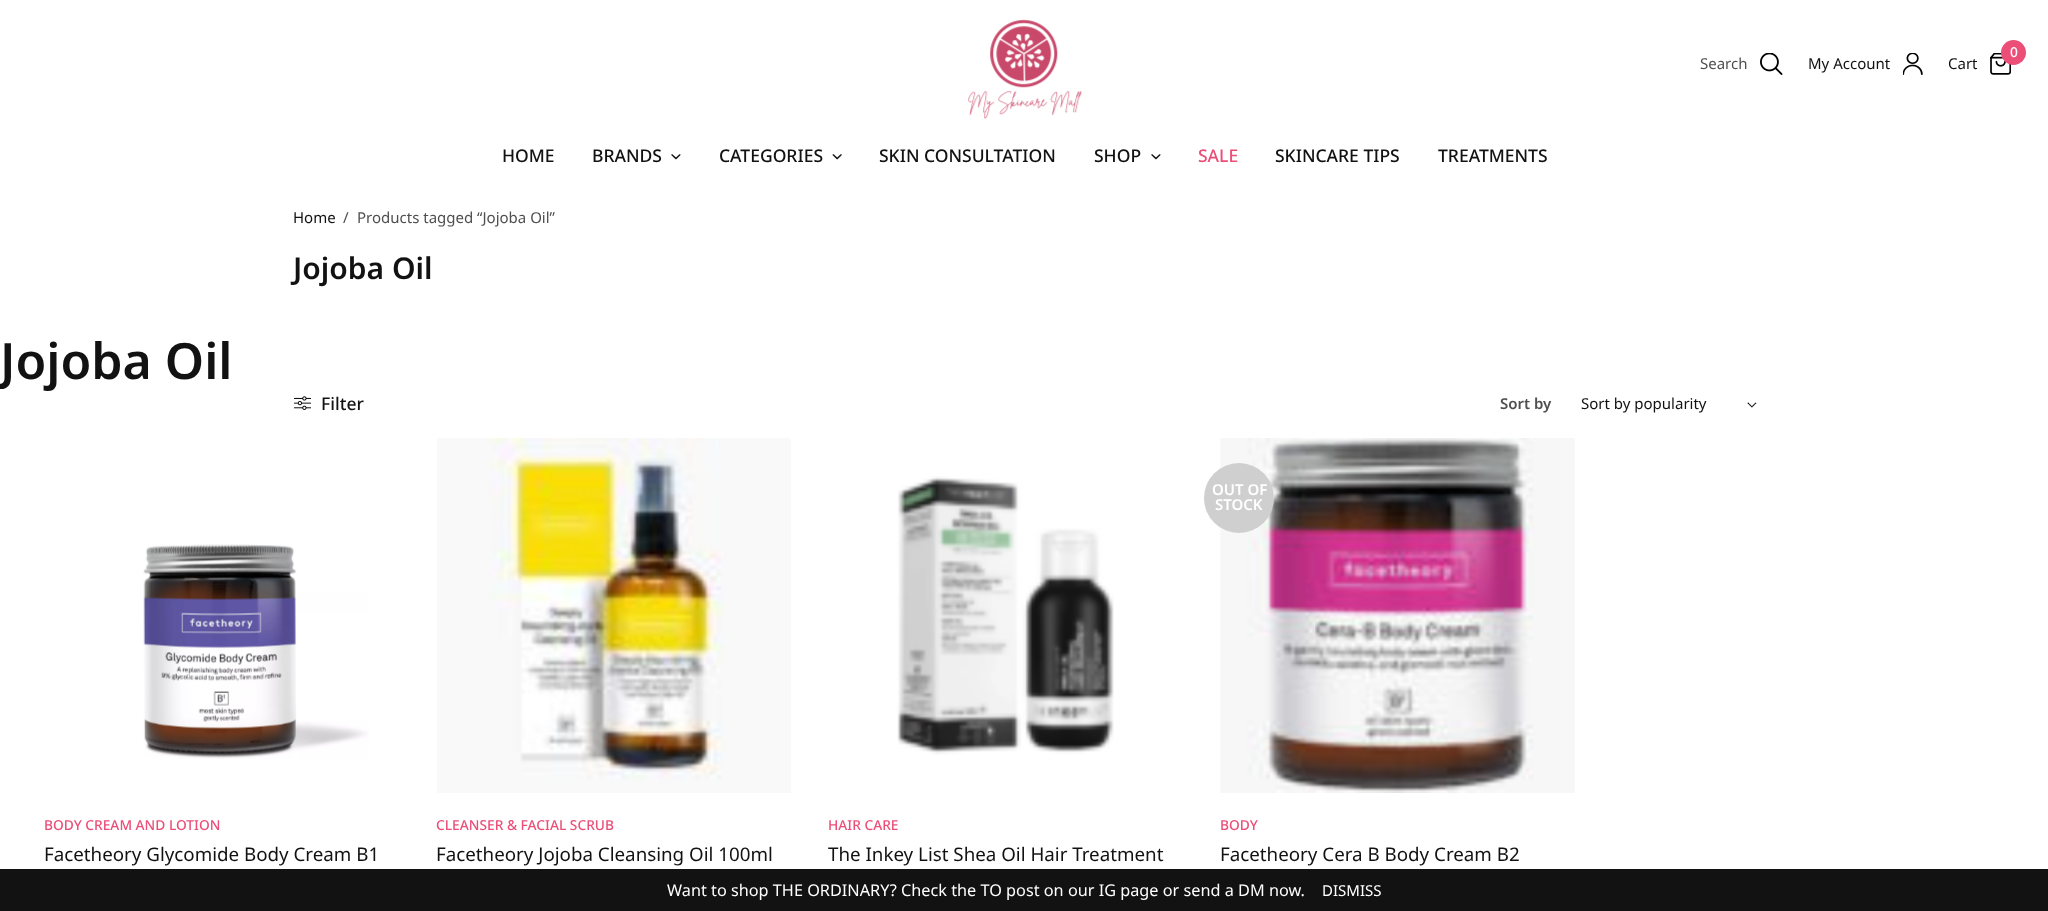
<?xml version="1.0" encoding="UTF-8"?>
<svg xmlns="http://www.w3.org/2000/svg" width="2048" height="911">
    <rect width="100%" height="100%" fill="#FFFFFF"/>
    <image x="968" y="19" width="114" height="100" href="img_01.png"/>
    <text x="1700" y="69" font-family="Noto Sans" font-size="15" fill="#4F4F4F">Search</text>
    <image x="1760" y="53" width="23" height="22" href="img_02.png"/>
    <text x="1808" y="69" font-family="Noto Sans" font-size="15" fill="#121212">My Account</text>
    <image x="1903" y="53" width="20" height="22" href="img_03.png"/>
    <image x="1990" y="53" width="21" height="22" href="img_04.png"/>
    <circle cx="2013.5" cy="52.5" r="12.5" fill="#EB4F78"/>
    <text x="2010" y="57" font-family="Noto Sans" font-size="13.75" font-weight="500" fill="#FFFFFF">0</text>
    <text x="1948" y="69" font-family="Noto Sans" font-size="15" fill="#121212">Cart</text>
    <text x="502" y="162" font-family="Noto Sans" font-size="17.5" font-weight="500" fill="#121212">HOME</text>
    <text x="592" y="162" font-family="Noto Sans" font-size="17.5" font-weight="500" fill="#121212">BRANDS</text>
    <image x="671" y="154" width="10" height="6" href="img_05.png"/>
    <text x="719" y="162" font-family="Noto Sans" font-size="17.5" font-weight="500" fill="#121212">CATEGORIES</text>
    <image x="832" y="154" width="10" height="6" href="img_06.png"/>
    <text x="879" y="162" font-family="Noto Sans" font-size="17.5" font-weight="500" fill="#121212">SKIN CONSULTATION</text>
    <text x="1094" y="162" font-family="Noto Sans" font-size="17.5" font-weight="500" fill="#121212">SHOP</text>
    <image x="1151" y="154" width="10" height="6" href="img_05.png"/>
    <text x="1198" y="162" font-family="Noto Sans" font-size="17.5" font-weight="500" fill="#EB4F78">SALE</text>
    <text x="1275" y="162" font-family="Noto Sans" font-size="17.5" font-weight="500" fill="#121212">SKINCARE TIPS</text>
    <text x="1438" y="162" font-family="Noto Sans" font-size="17.5" font-weight="500" fill="#121212">TREATMENTS</text>
    <text x="293" y="223" font-family="Noto Sans" font-size="15" fill="#121212">Home</text>
    <text x="343" y="223" font-family="Noto Sans" font-size="15" fill="#4F4F4F">/</text>
    <text x="357" y="223" font-family="Noto Sans" font-size="15" fill="#4F4F4F">Products tagged “Jojoba Oil”</text>
    <text x="293" y="279" font-family="Noto Sans" font-size="30" font-weight="600" fill="#121212">Jojoba Oil</text>
    <text x="0" y="379" font-family="Noto Sans" font-size="50" font-weight="600" fill="#121212">Jojoba Oil</text>
    <image x="294" y="396" width="17" height="14" href="img_07.png"/>
    <text x="321" y="410" font-family="Noto Sans" font-size="17.5" font-weight="500" fill="#121212">Filter</text>
    <text x="1500" y="409" font-family="Noto Sans" font-size="15" font-weight="600" fill="#4F4F4F">Sort by</text>
    <image x="1747" y="402" width="10" height="6" href="img_08.png"/>
    <text x="1581" y="409" font-family="Noto Sans" font-size="15" fill="#121212">Sort by popularity</text>
    <image x="143" y="544" width="226" height="215" href="img_09.png"/>
    <text x="44" y="830" font-family="Noto Sans" font-size="13.75" font-weight="500" fill="#EB4F78">BODY CREAM AND LOTION</text>
    <text x="44" y="861" font-family="Noto Sans" font-size="18.75" fill="#121212">Facetheory Glycomide Body Cream B1</text>
    <image x="437" y="438" width="354" height="355" href="img_10.png"/>
    <text x="436" y="830" font-family="Noto Sans" font-size="13.75" font-weight="500" fill="#EB4F78">CLEANSER &amp; FACIAL SCRUB</text>
    <text x="436" y="861" font-family="Noto Sans" font-size="18.75" fill="#121212">Facetheory Jojoba Cleansing Oil 100ml</text>
    <image x="897" y="476" width="217" height="279" href="img_11.png"/>
    <text x="828" y="830" font-family="Noto Sans" font-size="13.75" font-weight="500" fill="#EB4F78">HAIR CARE</text>
    <text x="828" y="861" font-family="Noto Sans" font-size="18.75" fill="#121212">The Inkey List Shea Oil Hair Treatment</text>
    <image x="1220" y="438" width="355" height="355" href="img_12.png"/>
    <circle cx="1239" cy="498" r="35" fill="#CFCFCF"/>
    <text x="1212" y="495" font-family="Noto Sans" font-size="15" font-weight="600" fill="#FFFFFF">OUT OF</text>
    <text x="1215" y="510" font-family="Noto Sans" font-size="15" font-weight="600" fill="#FFFFFF">STOCK</text>
    <text x="1220" y="830" font-family="Noto Sans" font-size="13.75" font-weight="500" fill="#EB4F78">BODY</text>
    <text x="1220" y="861" font-family="Noto Sans" font-size="18.75" fill="#121212">Facetheory Cera B Body Cream B2</text>
    <rect x="0" y="869" width="2048" height="42" fill="#121212"/>
    <text x="667" y="896" font-family="Noto Sans" font-size="16.25" fill="#FFFFFF">Want to shop THE ORDINARY? Check the TO post on our IG page or send a DM now.</text>
    <text x="1322" y="896" font-family="Noto Sans" font-size="15" fill="#FFFFFF">DISMISS</text>
</svg>
